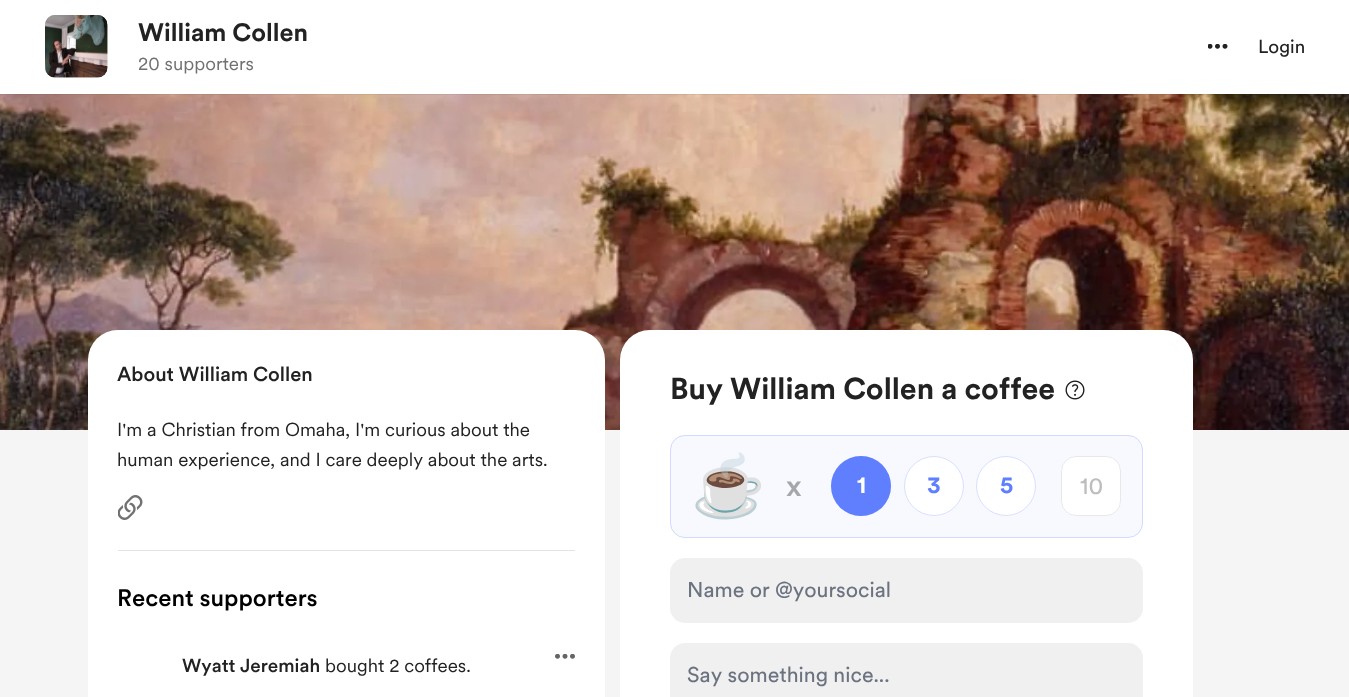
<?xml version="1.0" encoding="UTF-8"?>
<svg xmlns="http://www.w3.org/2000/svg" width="1349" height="697">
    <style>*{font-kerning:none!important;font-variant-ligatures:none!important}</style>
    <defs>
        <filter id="blur1" x="-50%" y="-200%" width="200%" height="500%"><feGaussianBlur stdDeviation="0.5"/></filter>
    </defs>
    <rect width="100%" height="100%" fill="#F5F5F5"/>
    <image x="0" y="94" width="1349" height="336" href="img_04.png"/>
    <rect x="0" y="1" width="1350" height="94" fill="#000000" fill-opacity="0.06" filter="url(#blur1)"/>
    <rect x="0" y="0" width="1349" height="94" fill="#FFFFFF"/>
    <image x="45" y="15" width="63" height="63" href="img_01.png"/>
    <image x="45" y="15" width="63" height="63" href="img_02.png"/>
    <text x="138" y="41" font-family="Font" font-size="25" font-weight="700" fill="#222222">William Collen</text>
    <text x="138" y="70" font-family="'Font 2'" font-size="18.75" fill="#717171">20 supporters</text>
    <image x="1208" y="44" width="20" height="5" href="img_03.png"/>
    <text x="1258" y="53" font-family="Font" font-size="18.75" fill="#222222">Login</text>
    <rect x="88" y="330" width="517" height="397" rx="30" fill="#FFFFFF"/>
    <rect x="118" y="550" width="457" height="1" fill="#E4E4E4"/>
    <text x="117" y="381" font-family="Font" font-size="20" font-weight="500" fill="#222222">About William Collen</text>
    <text font-family="'Font 2'" font-size="18.75" fill="#222222">
        <tspan x="117" y="436">I'm a Christian from Omaha, I'm curious about the</tspan>
        <tspan x="117" y="466">human experience, and I care deeply about the arts.</tspan>
    </text>
    <image x="118" y="495" width="25" height="25" href="img_05.png"/>
    <text x="117" y="606" font-family="Font" font-size="23.75" font-weight="500" fill="#000000">Recent supporters</text>
    <image x="555" y="654" width="20" height="5" href="img_06.png"/>
    <text x="182" y="672" font-family="Font" font-size="18.75" font-weight="500" fill="#222222">Wyatt Jeremiah</text>
    <text x="325" y="672" font-family="'Font 2'" font-size="18.75" fill="#222222">bought 2 coffees.</text>
    <rect x="620" y="330" width="573" height="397" rx="30" fill="#FFFFFF"/>
    <text x="670" y="399" font-family="Font" font-size="30" font-weight="700" fill="#222222">Buy William Collen a coffee</text>
    <image x="1065" y="380" width="20" height="20" href="img_07.png"/>
    <rect x="670" y="435" width="473" height="103" rx="15" fill="#F7F9FF"/>
    <rect x="670.5" y="435.5" width="472" height="102" rx="14.5" fill="none" stroke="#5F7FFF" stroke-opacity="0.25"/>
    <text x="691" y="507" font-family="Noto Color Emoji" font-size="60" fill="#000000">☕</text>
    <text x="786" y="496" font-family="Font" font-size="30" font-weight="500" fill="#A7A7AA">x</text>
    <circle cx="861" cy="486" r="30" fill="#5F7FFF"/>
    <circle cx="861" cy="486" r="29.5" fill="none" stroke="#5F7FFF" stroke-opacity="0.25"/>
    <text x="857" y="493" font-family="Font" font-size="23.75" font-weight="700" fill="#FFFFFF">1</text>
    <circle cx="934" cy="486" r="30" fill="#FFFFFF"/>
    <circle cx="934" cy="486" r="29.5" fill="none" stroke="#5F7FFF" stroke-opacity="0.25"/>
    <text x="927" y="493" font-family="Font" font-size="23.75" font-weight="700" fill="#5F7FFF">3</text>
    <circle cx="1006" cy="486" r="30" fill="#FFFFFF"/>
    <circle cx="1006" cy="486" r="29.5" fill="none" stroke="#5F7FFF" stroke-opacity="0.25"/>
    <text x="1000" y="493" font-family="Font" font-size="23.75" font-weight="700" fill="#5F7FFF">5</text>
    <rect x="1061" y="456" width="60" height="60" rx="15" fill="#FFFFFF"/>
    <rect x="1061.5" y="456.5" width="59" height="59" rx="14.5" fill="none" stroke="#222222" stroke-opacity="0.1"/>
    <text x="1080" y="494" font-family="Font" font-size="23.75" fill="#BDBDBD">10</text>
    <rect x="670" y="558" width="473" height="65" rx="15" fill="#F0F0F0"/>
    <text x="687" y="597" font-family="Font" font-size="21.25" fill="#6B7280">Name or @yoursocial</text>
    <rect x="670" y="643" width="473" height="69" rx="15" fill="#F0F0F0"/>
    <text x="687" y="682" font-family="Font" font-size="21.25" fill="#6B7280">Say something nice...</text>
</svg>
